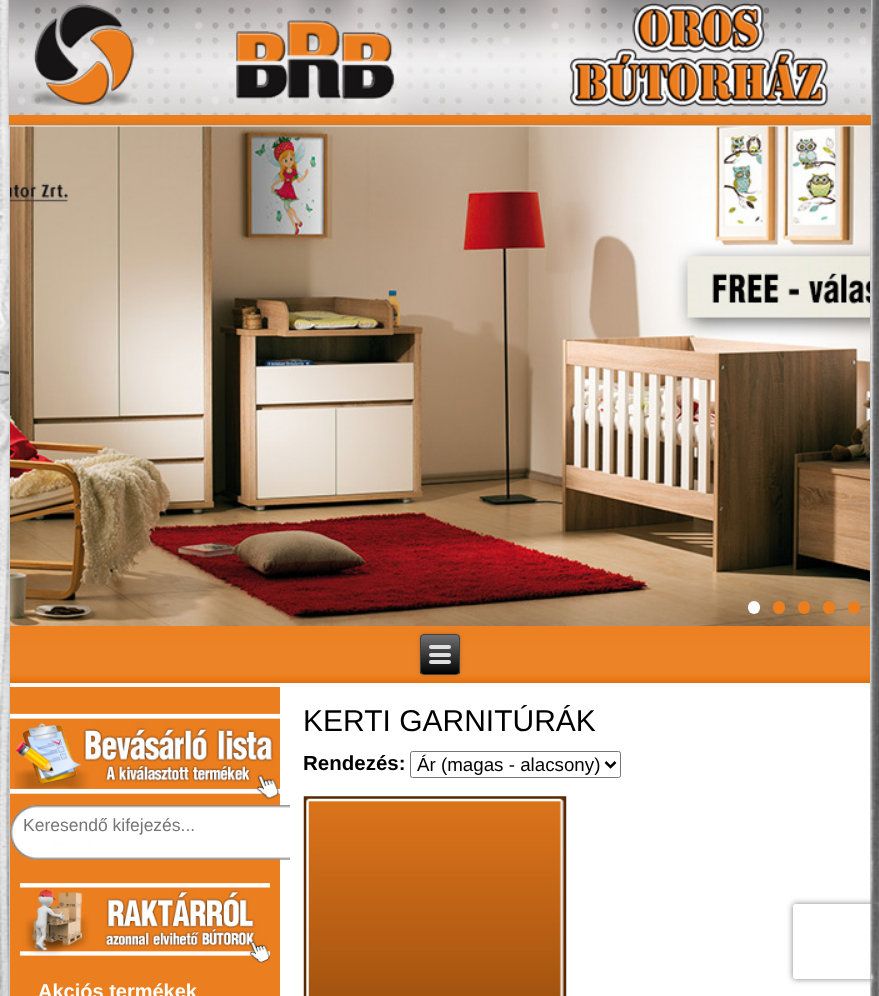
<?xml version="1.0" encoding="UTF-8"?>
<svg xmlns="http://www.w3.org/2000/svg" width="879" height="996">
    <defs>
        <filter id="blur1" x="-50%" y="-200%" width="200%" height="500%"><feGaussianBlur stdDeviation="2"/></filter>
        <linearGradient id="g1" gradientUnits="userSpaceOnUse" x1="440" y1="626" x2="440" y2="686"><stop offset="0" stop-color="#EC8022"/><stop offset="0.4" stop-color="#EC8327"/><stop offset="0.8" stop-color="#EC8327"/><stop offset="0.88" stop-color="#EB7814"/><stop offset="1" stop-color="#CE6A12"/></linearGradient>
        <clipPath id="clip1"><rect x="420" y="634" width="40" height="41" rx="4"/></clipPath>
        <linearGradient id="g2" gradientUnits="userSpaceOnUse" x1="440" y1="635" x2="440" y2="674"><stop offset="0" stop-color="#707070"/><stop offset="1" stop-color="#000000"/></linearGradient>
        <clipPath id="clip2"><path d="M 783 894 H 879 V 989 H 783 Z M 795.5 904 H 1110.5 C 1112 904 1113 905 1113 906.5 V 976.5 C 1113 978 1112 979 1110.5 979 H 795.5 C 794 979 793 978 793 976.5 V 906.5 C 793 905 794 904 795.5 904 Z" clip-rule="evenodd"/></clipPath>
        <filter id="blur2" x="-50%" y="-200%" width="200%" height="500%"><feGaussianBlur stdDeviation="3"/></filter>
    </defs>
    <rect width="100%" height="100%" fill="#FFFFFF"/>
    <image x="0" y="0" width="879" height="996" href="img_01.png"/>
    <rect x="6" y="-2" width="868" height="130" fill="#000000" fill-opacity="0.07" filter="url(#blur1)"/>
    <image x="8" y="0" width="864" height="125" href="img_02.png"/>
    <rect x="9" y="115" width="862" height="10" fill="#EB7E1E"/>
    <rect x="6" y="123" width="868" height="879" fill="#000000" fill-opacity="0.07" filter="url(#blur1)"/>
    <rect x="9.5" y="125.5" width="861" height="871" fill="#FFFFFF" stroke="#C7C7C7"/>
    <image x="10" y="126" width="860" height="500" href="img_03.png"/>
    <rect x="748" y="601" width="12" height="13" rx="6" fill="#FFFFFF"/>
    <rect x="773" y="601" width="12" height="13" rx="6" fill="#EB7E1E"/>
    <rect x="798" y="601" width="12" height="13" rx="6" fill="#EB7E1E"/>
    <rect x="823" y="601" width="12" height="13" rx="6" fill="#EB7E1E"/>
    <rect x="848" y="601" width="12" height="13" rx="6" fill="#EB7E1E"/>
    <rect x="10" y="626" width="860" height="57" fill="url(#g1)"/>
    <rect x="10" y="683" width="860" height="4" fill="#FAFAFA"/>
    <rect x="420" y="634" width="40" height="41" rx="4" fill="#000000" fill-opacity="0.2" filter="url(#blur1)"/>
    <g clip-path="url(#clip1)">
        <rect x="420" y="635" width="40" height="39" fill="url(#g2)"/>
    </g>
    <rect x="420.5" y="634.5" width="39" height="40" rx="3.5" fill="none" stroke="#404040"/>
    <rect x="429" y="645" width="22" height="4" rx="2" fill="#E0E0E0"/>
    <rect x="429" y="653" width="22" height="4" rx="2" fill="#E0E0E0"/>
    <rect x="429" y="660" width="22" height="4" rx="2" fill="#E0E0E0"/>
    <text x="303" y="731" font-family="Liberation Sans" font-size="30" fill="#000000">KERTI GARNITÚRÁK</text>
    <text x="303" y="770" font-family="Liberation Sans" font-size="20.5" font-weight="700" fill="#000000">Rendezés:</text>
    <rect x="410.5" y="751.5" width="210" height="26" rx="2" fill="none" stroke="#767676"/>
    <path d="M 605.5 762 L 610.5 767 L 615.5 762" fill="none" stroke="#000000" stroke-width="2.5"/>
    <text x="417" y="771" font-family="Liberation Sans" font-size="18.75" fill="#000000">Ár (magas - alacsony)</text>
    <image x="303" y="796" width="264" height="200" href="img_04.png"/>
    <rect x="10" y="687" width="270" height="309" fill="#EB7E1E"/>
    <image x="10" y="713" width="270" height="87" href="img_05.png"/>
    <image x="10" y="805" width="280" height="55" href="img_06.png"/>
    <text x="23" y="831" font-family="Liberation Sans" font-size="17.5" fill="#757575">Keresendő kifejezés...</text>
    <image x="20" y="883" width="250" height="80" href="img_07.png"/>
    <text x="38" y="998" font-family="Liberation Sans" font-size="20" font-weight="700" fill="#FFFFFF">Akciós termékek</text>
    <g clip-path="url(#clip2)">
        <rect x="793" y="904" width="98" height="75" rx="2.5" fill="#808080" filter="url(#blur2)"/>
    </g>
</svg>
